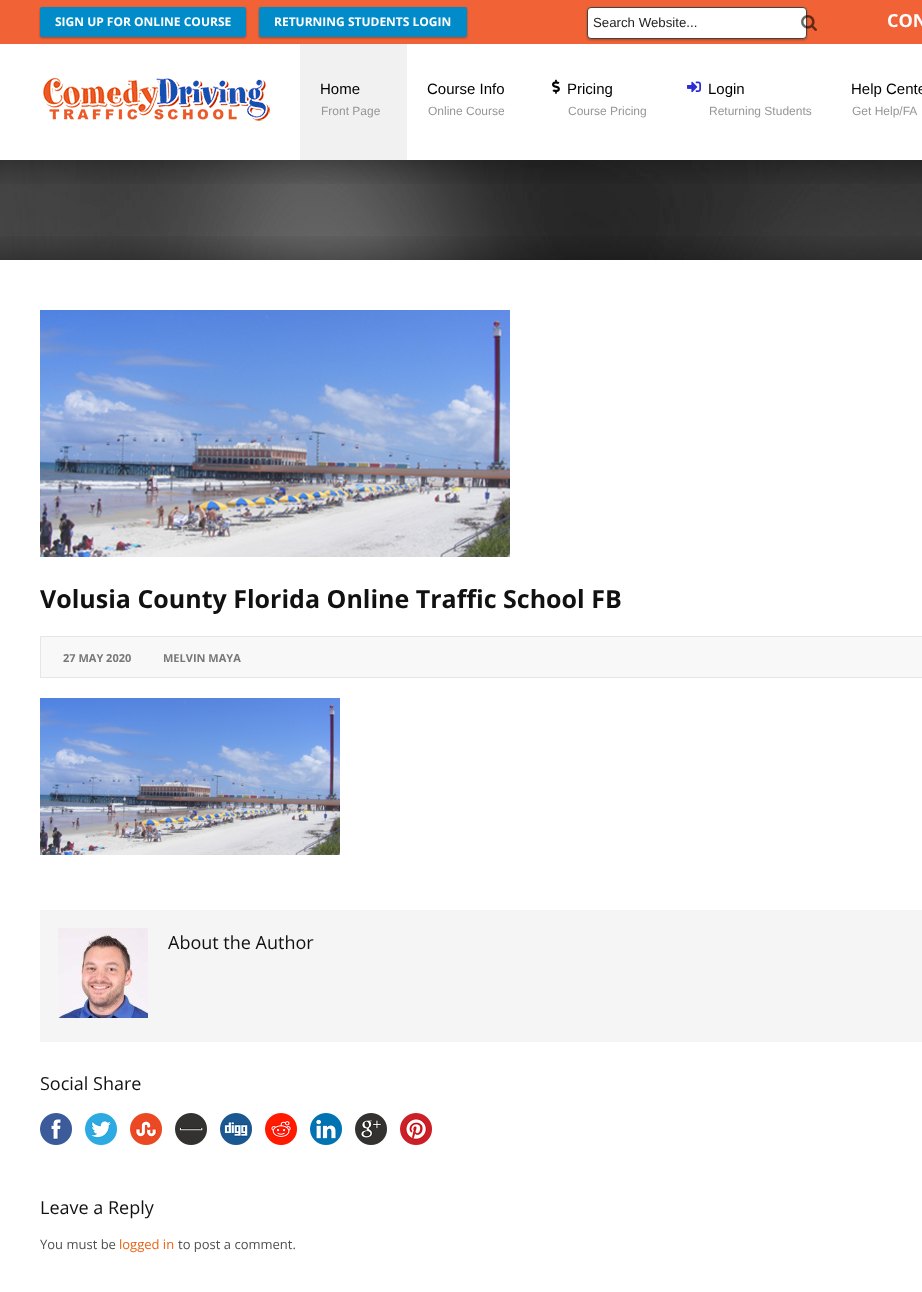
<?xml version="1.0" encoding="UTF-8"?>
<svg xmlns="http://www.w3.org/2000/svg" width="922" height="1292">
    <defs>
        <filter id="blur1" x="-50%" y="-200%" width="200%" height="500%"><feGaussianBlur stdDeviation="1"/></filter>
    </defs>
    <rect width="100%" height="100%" fill="#FFFFFF"/>
    <rect x="0" y="0" width="922" height="44" fill="#F16236"/>
    <rect x="40" y="8" width="206" height="30" rx="2" fill="#000000" fill-opacity="0.3" filter="url(#blur1)"/>
    <rect x="40" y="7" width="206" height="30" rx="2" fill="#018CC9"/>
    <text x="55" y="26" font-family="Open Sans" font-size="12" font-weight="700" fill="#FFFFFF">SIGN UP FOR ONLINE COURSE</text>
    <rect x="259" y="8" width="208" height="30" rx="2" fill="#000000" fill-opacity="0.3" filter="url(#blur1)"/>
    <rect x="259" y="7" width="208" height="30" rx="2" fill="#018CC9"/>
    <text x="274" y="26" font-family="Open Sans" font-size="12" font-weight="700" fill="#FFFFFF">RETURNING STUDENTS LOGIN</text>
    <rect x="587" y="8" width="220" height="32" rx="4" fill="#000000" fill-opacity="0.3" filter="url(#blur1)"/>
    <rect x="587.5" y="7.5" width="219" height="31" rx="3.5" fill="#FFFFFF" stroke="#434343"/>
    <text x="593" y="27" font-family="Liberation Sans" font-size="13.25" fill="#232222">Search Website...</text>
    <image x="801" y="15" width="16" height="16" href="img_01.png"/>
    <text x="887" y="27" font-family="Open Sans" font-size="18" font-weight="700" fill="#FFFFFF">CON</text>
    <image x="43" y="77" width="227" height="44" href="img_02.png"/>
    <rect x="300" y="44" width="107" height="116" fill="#F1F1F1"/>
    <text x="320" y="94" font-family="Liberation Sans" font-size="15" fill="#000000">Home</text>
    <text x="321" y="115" font-family="Liberation Sans" font-size="12" fill="#969696">Front Page</text>
    <text x="427" y="94" font-family="Liberation Sans" font-size="15" fill="#000000">Course Info</text>
    <text x="428" y="115" font-family="Liberation Sans" font-size="12" fill="#969696">Online Course</text>
    <image x="552" y="79" width="8" height="15" href="img_03.png"/>
    <text x="567" y="94" font-family="Liberation Sans" font-size="15" fill="#000000">Pricing</text>
    <text x="568" y="115" font-family="Liberation Sans" font-size="12" fill="#969696">Course Pricing</text>
    <image x="687" y="81" width="14" height="12" href="img_04.png"/>
    <text x="708" y="94" font-family="Liberation Sans" font-size="15" fill="#000000">Login</text>
    <text x="709" y="115" font-family="Liberation Sans" font-size="12" fill="#969696">Returning Students</text>
    <text x="851" y="94" font-family="Liberation Sans" font-size="15" fill="#000000">Help Cente</text>
    <text x="852" y="115" font-family="Liberation Sans" font-size="12" fill="#969696">Get Help/FA</text>
    <image x="0" y="160" width="922" height="100" href="img_05.png"/>
    <image x="0" y="160" width="922" height="24" href="img_06.png"/>
    <image x="0" y="236" width="922" height="24" href="img_07.png"/>
    <image x="40" y="310" width="470" height="247" href="img_08.png"/>
    <text x="40" y="608" font-family="Open Sans" font-size="25" font-weight="700" fill="#111111">Volusia County Florida Online Traffic School FB</text>
    <rect x="40.5" y="636.5" width="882" height="41" fill="#F8F8F8" stroke="#E6E6E6"/>
    <text x="63" y="662" font-family="Open Sans" font-size="11" font-weight="700" fill="#787878">27 MAY 2020</text>
    <text x="163" y="662" font-family="Open Sans" font-size="11" font-weight="700" fill="#787878">MELVIN MAYA</text>
    <image x="40" y="698" width="300" height="157" href="img_09.png"/>
    <rect x="40" y="910" width="882" height="132" fill="#F5F5F5"/>
    <image x="58" y="928" width="90" height="90" href="img_10.png"/>
    <text x="168" y="949" font-family="Open Sans" font-size="18" fill="#111111">About the Author</text>
    <text x="40" y="1090" font-family="Open Sans" font-size="18" fill="#111111">Social Share</text>
    <image x="40" y="1113" width="32" height="32" href="img_11.png"/>
    <image x="85" y="1113" width="32" height="32" href="img_12.png"/>
    <image x="130" y="1113" width="32" height="32" href="img_13.png"/>
    <image x="175" y="1113" width="32" height="32" href="img_14.png"/>
    <image x="220" y="1113" width="32" height="32" href="img_15.png"/>
    <image x="265" y="1113" width="32" height="32" href="img_16.png"/>
    <image x="310" y="1113" width="32" height="32" href="img_17.png"/>
    <image x="355" y="1113" width="32" height="32" href="img_18.png"/>
    <image x="400" y="1113" width="32" height="32" href="img_19.png"/>
    <text x="40" y="1214" font-family="Open Sans" font-size="18" fill="#111111">Leave a Reply</text>
    <text x="40" y="1249" font-family="Open Sans" font-size="13" fill="#505050">You must be</text>
    <text x="119" y="1249" font-family="Open Sans" font-size="13" fill="#EA6315">logged in</text>
    <text x="178" y="1249" font-family="Open Sans" font-size="13" fill="#505050">to post a comment.</text>
</svg>
